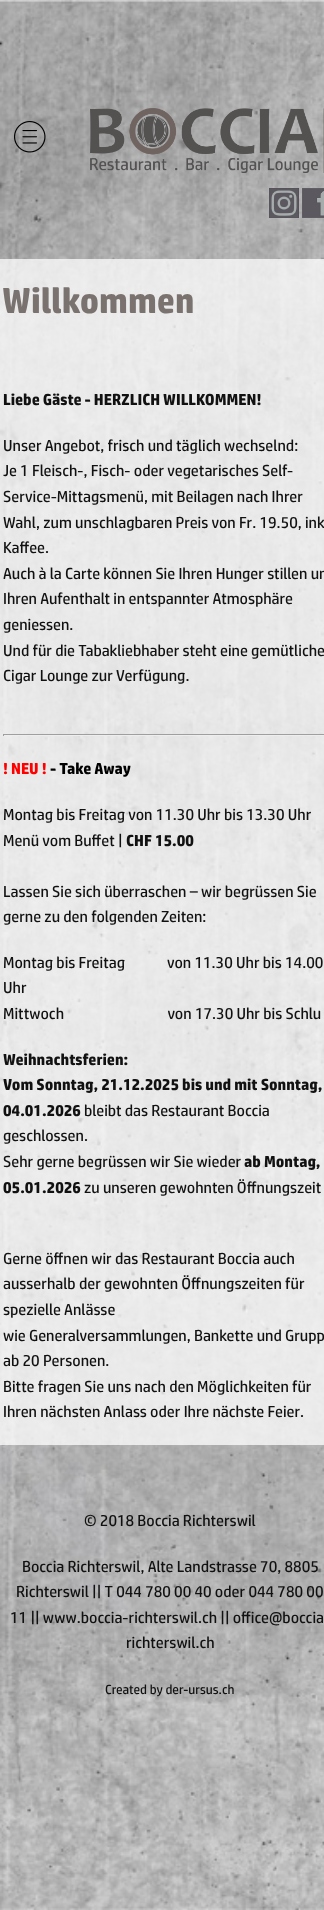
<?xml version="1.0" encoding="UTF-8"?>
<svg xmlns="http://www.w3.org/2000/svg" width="324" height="1910">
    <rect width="100%" height="100%" fill="#FFFFFF"/>
    <image x="0" y="0" width="324" height="1910" href="img_01.png"/>
    <image x="14" y="121" width="32" height="32" href="img_02.png"/>
    <image x="90" y="108" width="234" height="65" href="img_03.png"/>
    <image x="269" y="188" width="30" height="30" href="img_04.png"/>
    <image x="302" y="188" width="22" height="30" href="img_05.png"/>
    <rect x="0" y="259" width="324" height="1186" fill="#FFFFFF" fill-opacity="0.75"/>
    <text x="2" y="313" font-family="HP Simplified" font-size="36" font-weight="700" fill="#7A726F">Willkommen</text>
    <text x="3" y="405" font-family="HP Simplified" font-size="16" font-weight="700" fill="#111111">Liebe Gäste - HERZLICH WILLKOMMEN!</text>
    <text font-family="HP Simplified" font-size="16" fill="#111111">
        <tspan x="3" y="451">Unser Angebot, frisch und täglich wechselnd:</tspan>
        <tspan x="3" y="476">Je 1 Fleisch-, Fisch- oder vegetarisches Self-</tspan>
        <tspan x="3" y="502">Service-Mittagsmenü, mit Beilagen nach Ihrer</tspan>
        <tspan x="3" y="528">Wahl, zum unschlagbaren Preis von Fr. 19.50, ink</tspan>
        <tspan x="3" y="553">Kaffee.</tspan>
        <tspan x="3" y="579">Auch à la Carte können Sie Ihren Hunger stillen un</tspan>
        <tspan x="3" y="604">Ihren Aufenthalt in entspannter Atmosphäre</tspan>
        <tspan x="3" y="630">geniessen.</tspan>
        <tspan x="3" y="656">Und für die Tabakliebhaber steht eine gemütliche</tspan>
        <tspan x="3" y="681">Cigar Lounge zur Verfügung.</tspan>
    </text>
    <rect x="3" y="734" width="321" height="1" fill="#9F9F9F"/>
    <rect x="3" y="735" width="321" height="1" fill="#EEEEEE"/>
    <rect x="3" y="734" width="1" height="2" fill="#9F9F9F"/>
    <text x="3" y="774" font-family="HP Simplified" font-size="16" font-weight="700" fill="#FF0000">! NEU !</text>
    <text x="50" y="774" font-family="HP Simplified" font-size="16" font-weight="700" fill="#000000">- Take Away</text>
    <text font-family="HP Simplified" font-size="16" fill="#111111">
        <tspan x="3" y="820">Montag bis Freitag von 11.30 Uhr bis 13.30 Uhr</tspan>
        <tspan x="3" y="846">Menü vom Buffet |</tspan>
    </text>
    <text x="126" y="846" font-family="HP Simplified" font-size="16" font-weight="700" fill="#111111">CHF 15.00</text>
    <text font-family="HP Simplified" font-size="16" fill="#111111">
        <tspan x="3" y="897">Lassen Sie sich überraschen – wir begrüssen Sie</tspan>
        <tspan x="3" y="922">gerne zu den folgenden Zeiten:</tspan>
    </text>
    <text font-family="HP Simplified" font-size="16" fill="#111111" xml:space="preserve"><tspan x="3" y="968">Montag bis Freitag             von 11.30 Uhr bis 14.00</tspan><tspan x="3" y="993">Uhr</tspan><tspan x="3" y="1019">Mittwoch                                von 17.30 Uhr bis Schlu</tspan></text>
    <text font-family="HP Simplified" font-size="16" font-weight="700" fill="#111111">
        <tspan x="3" y="1065">Weihnachtsferien:</tspan>
        <tspan x="3" y="1090">Vom Sonntag, 21.12.2025 bis und mit Sonntag,</tspan>
        <tspan x="3" y="1116">04.01.2026</tspan>
    </text>
    <text x="84" y="1116" font-family="HP Simplified" font-size="16" fill="#111111">bleibt das Restaurant Boccia</text>
    <text font-family="HP Simplified" font-size="16" fill="#111111">
        <tspan x="3" y="1141">geschlossen.</tspan>
        <tspan x="3" y="1167">Sehr gerne begrüssen wir Sie wieder</tspan>
    </text>
    <text x="244" y="1167" font-family="HP Simplified" font-size="16" font-weight="700" fill="#111111">ab Montag,</text>
    <text x="3" y="1193" font-family="HP Simplified" font-size="16" font-weight="700" fill="#111111">05.01.2026</text>
    <text x="84" y="1193" font-family="HP Simplified" font-size="16" fill="#111111">zu unseren gewohnten Öffnungszeit</text>
    <text font-family="HP Simplified" font-size="16" fill="#111111">
        <tspan x="3" y="1264">Gerne öffnen wir das Restaurant Boccia auch</tspan>
        <tspan x="3" y="1289">ausserhalb der gewohnten Öffnungszeiten für</tspan>
        <tspan x="3" y="1315">spezielle Anlässe</tspan>
        <tspan x="3" y="1341">wie Generalversammlungen, Bankette und Grupp</tspan>
        <tspan x="3" y="1366">ab 20 Personen.</tspan>
        <tspan x="3" y="1392">Bitte fragen Sie uns nach den Möglichkeiten für</tspan>
        <tspan x="3" y="1417">Ihren nächsten Anlass oder Ihre nächste Feier.</tspan>
    </text>
    <text x="84" y="1526" font-family="HP Simplified" font-size="16" fill="#111111">© 2018 Boccia Richterswil</text>
    <text x="22" y="1572" font-family="HP Simplified" font-size="16" fill="#111111">Boccia Richterswil, Alte Landstrasse 70, 8805</text>
    <text x="16" y="1597" font-family="HP Simplified" font-size="16" fill="#111111">Richterswil || T 044 780 00 40 oder 044 780 00</text>
    <text x="10" y="1623" font-family="HP Simplified" font-size="16" fill="#111111">11 || www.boccia-richterswil.ch || office@boccia</text>
    <text x="126" y="1648" font-family="HP Simplified" font-size="16" fill="#111111">richterswil.ch</text>
    <text x="105" y="1694" font-family="HP Simplified" font-size="13.25" fill="#111111">Created by der-ursus.ch</text>
</svg>
